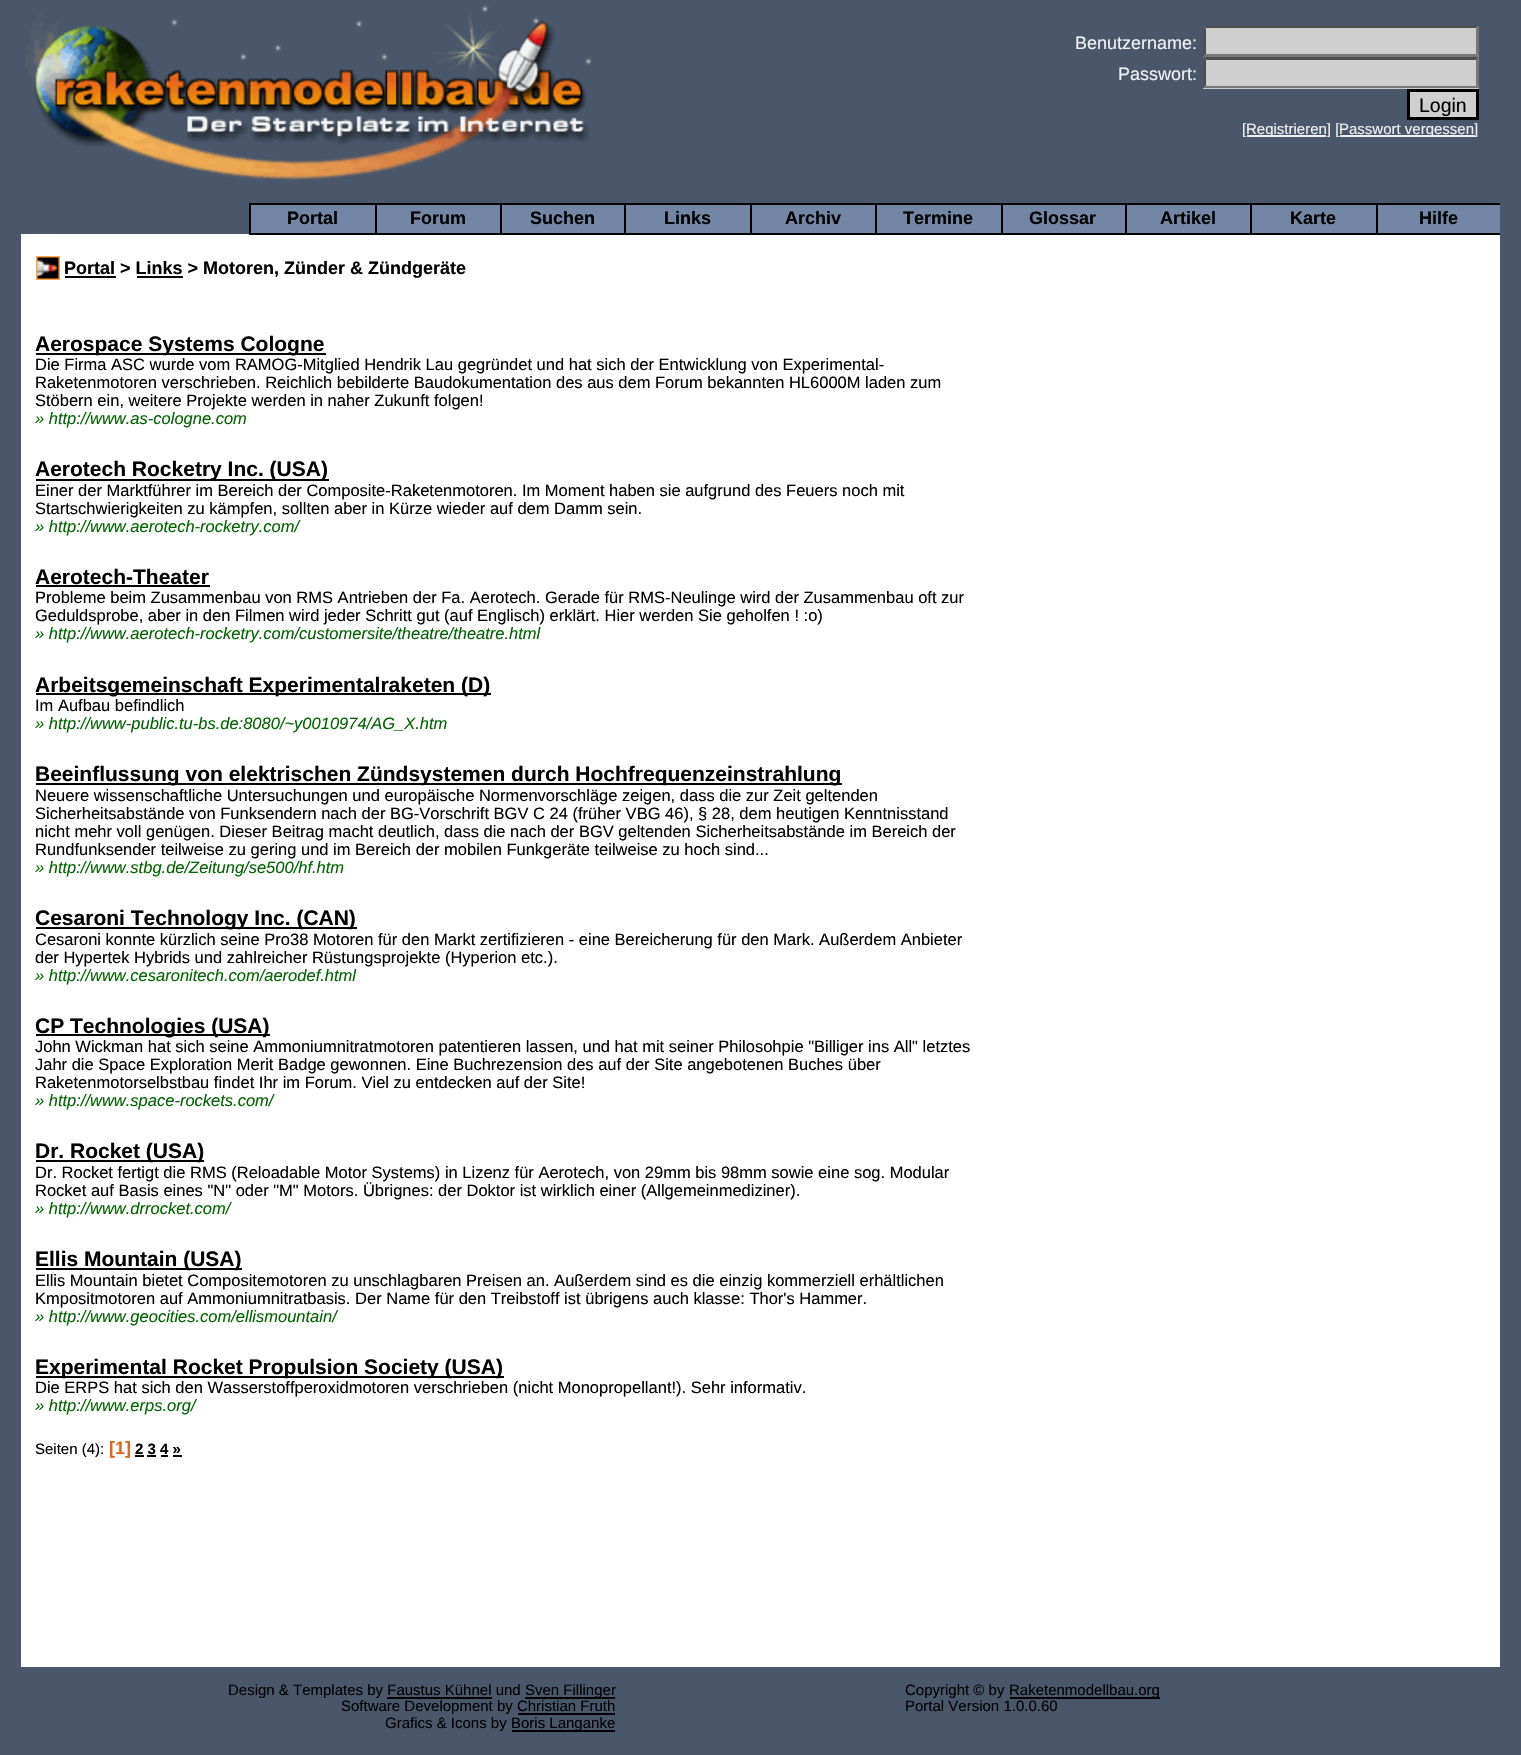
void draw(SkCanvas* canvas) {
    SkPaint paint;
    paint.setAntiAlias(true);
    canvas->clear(0xFF4A576B);
    canvas->drawImageRect(SkImages::DeferredFromEncodedData(SkData::MakeFromFileName("img1.png")), SkRect::MakeXYWH(25, 5, 567, 175), SkSamplingOptions());
    SkFont font1(fontMgr->matchFamilyStyle("Liberation Sans", SkFontStyle::Normal()), 18);
    font1.setSubpixel(true);
    paint.setColor(0xFFF1F1F1);
    canvas->drawString("Benutzername:", 1075, 49, font1, paint);
    paint.setColor(0xFFCFCFCF);
    canvas->drawRect(SkRect::MakeXYWH(1203, 26, 276, 63), paint);
    paint.setColor(0xFF4F4F4F);
    canvas->drawPath(SkPathBuilder().moveTo(1203, 26).lineTo(1479, 26).lineTo(1476, 28).lineTo(1206, 28).close().detach(), paint);
    paint.setColor(0xFF767676);
    canvas->drawPath(SkPathBuilder().moveTo(1479, 25.5f).lineTo(1479, 57).lineTo(1476, 54).lineTo(1476, 28.5f).close().detach(), paint);
    canvas->drawPath(SkPathBuilder().moveTo(1479, 57).lineTo(1203, 57).lineTo(1206, 54).lineTo(1476, 54).close().detach(), paint);
    paint.setColor(0xFF4F4F4F);
    canvas->drawPath(SkPathBuilder().moveTo(1203, 57).lineTo(1203, 25.5f).lineTo(1206, 28.5f).lineTo(1206, 54).close().detach(), paint);
    paint.setColor(0xFFF1F1F1);
    canvas->drawString("Passwort:", 1118, 80, font1, paint);
    paint.setColor(0xFF4F4F4F);
    canvas->drawPath(SkPathBuilder().moveTo(1203, 57).lineTo(1479, 57).lineTo(1476, 60).lineTo(1206, 60).close().detach(), paint);
    paint.setColor(0xFF767676);
    canvas->drawPath(SkPathBuilder().moveTo(1479, 57).lineTo(1479, 88.5f).lineTo(1476, 85.5f).lineTo(1476, 60).close().detach(), paint);
    canvas->drawPath(SkPathBuilder().moveTo(1479, 88).lineTo(1203, 88).lineTo(1206, 86).lineTo(1476, 86).close().detach(), paint);
    paint.setColor(0xFF4F4F4F);
    canvas->drawPath(SkPathBuilder().moveTo(1203, 88.5f).lineTo(1203, 57).lineTo(1206, 60).lineTo(1206, 85.5f).close().detach(), paint);
    paint.setColor(0xFFCFCFCF);
    canvas->drawRect(SkRect::MakeXYWH(1408.5f, 90.5f, 69, 28), paint);
    paint.setStyle(SkPaint::kStroke_Style);
    paint.setStrokeWidth(3);
    paint.setColor(0xFF000000);
    canvas->drawRect(SkRect::MakeXYWH(1408.5f, 90.5f, 69, 28), paint);
    SkFont font2(fontMgr->matchFamilyStyle("Liberation Sans", SkFontStyle::Normal()), 19.5f);
    font2.setSubpixel(true);
    paint.setStyle(SkPaint::kFill_Style);
    canvas->drawString("Login", 1419, 112, font2, paint);
    SkFont font3(fontMgr->matchFamilyStyle("Liberation Sans", SkFontStyle::Normal()), 15);
    font3.setSubpixel(true);
    paint.setColor(0xFFF1F1F1);
    canvas->drawString("[", 1242, 134, font3, paint);
    canvas->drawRect(SkRect::MakeXYWH(1247, 135, 79, 2), paint);
    canvas->drawString("Registrieren] [", 1246, 134, font3, paint);
    canvas->drawRect(SkRect::MakeXYWH(1340, 135, 135, 2), paint);
    canvas->drawString("Passwort vergessen]", 1339, 134, font3, paint);
    paint.setColor(0xFF7386A5);
    canvas->drawRect(SkRect::MakeXYWH(251, 205, 124, 28), paint);
    paint.setColor(0xFF000000);
    canvas->drawRect(SkRect::MakeXYWH(249, 203, 1251, 2), paint);
    paint.setColor(0xFFFFFFFF);
    canvas->drawRect(SkRect::MakeXYWH(21, 234, 1479, 1433), paint);
    paint.setColor(0xFF000000);
    canvas->drawRect(SkRect::MakeXYWH(249, 233, 1251, 2), paint);
    canvas->drawRect(SkRect::MakeXYWH(249, 203, 2, 31), paint);
    SkFont font4(fontMgr->matchFamilyStyle("Liberation Sans", SkFontStyle::Bold()), 18);
    font4.setSubpixel(true);
    canvas->drawString("Portal", 287, 224, font4, paint);
    paint.setColor(0xFF7386A5);
    canvas->drawRect(SkRect::MakeXYWH(377, 205, 123, 28), paint);
    paint.setColor(0xFF000000);
    canvas->drawRect(SkRect::MakeXYWH(375, 203, 2, 31), paint);
    canvas->drawString("Forum", 410, 224, font4, paint);
    paint.setColor(0xFF7386A5);
    canvas->drawRect(SkRect::MakeXYWH(502, 205, 122, 28), paint);
    paint.setColor(0xFF000000);
    canvas->drawRect(SkRect::MakeXYWH(500, 203, 2, 31), paint);
    canvas->drawString("Suchen", 530, 224, font4, paint);
    paint.setColor(0xFF7386A5);
    canvas->drawRect(SkRect::MakeXYWH(626, 205, 124, 28), paint);
    paint.setColor(0xFF000000);
    canvas->drawRect(SkRect::MakeXYWH(624, 203, 2, 31), paint);
    canvas->drawString("Links", 664, 224, font4, paint);
    paint.setColor(0xFF7386A5);
    canvas->drawRect(SkRect::MakeXYWH(752, 205, 123, 28), paint);
    paint.setColor(0xFF000000);
    canvas->drawRect(SkRect::MakeXYWH(750, 203, 2, 31), paint);
    canvas->drawString("Archiv", 785, 224, font4, paint);
    paint.setColor(0xFF7386A5);
    canvas->drawRect(SkRect::MakeXYWH(877, 205, 124, 28), paint);
    paint.setColor(0xFF000000);
    canvas->drawRect(SkRect::MakeXYWH(875, 203, 2, 31), paint);
    canvas->drawString("Termine", 903, 224, font4, paint);
    paint.setColor(0xFF7386A5);
    canvas->drawRect(SkRect::MakeXYWH(1003, 205, 122, 28), paint);
    paint.setColor(0xFF000000);
    canvas->drawRect(SkRect::MakeXYWH(1001, 203, 2, 31), paint);
    canvas->drawString("Glossar", 1029, 224, font4, paint);
    paint.setColor(0xFF7386A5);
    canvas->drawRect(SkRect::MakeXYWH(1127, 205, 123, 28), paint);
    paint.setColor(0xFF000000);
    canvas->drawRect(SkRect::MakeXYWH(1125, 203, 2, 31), paint);
    canvas->drawString("Artikel", 1160, 224, font4, paint);
    paint.setColor(0xFF7386A5);
    canvas->drawRect(SkRect::MakeXYWH(1252, 205, 124, 28), paint);
    paint.setColor(0xFF000000);
    canvas->drawRect(SkRect::MakeXYWH(1250, 203, 2, 31), paint);
    canvas->drawString("Karte", 1290, 224, font4, paint);
    paint.setColor(0xFF7386A5);
    canvas->drawRect(SkRect::MakeXYWH(1378, 205, 122, 28), paint);
    paint.setColor(0xFF000000);
    canvas->drawRect(SkRect::MakeXYWH(1376, 203, 2, 31), paint);
    canvas->drawString("Hilfe", 1419, 224, font4, paint);
    canvas->drawImageRect(SkImages::DeferredFromEncodedData(SkData::MakeFromFileName("img2.png")), SkRect::MakeXYWH(36, 256, 24, 24), SkSamplingOptions());
    canvas->drawRect(SkRect::MakeXYWH(65, 276, 51, 2), paint);
    canvas->drawString("Portal > Links > Motoren, Zünder & Zündgeräte", 64, 274, font4, paint);
    canvas->drawRect(SkRect::MakeXYWH(137, 276, 46, 2), paint);
    canvas->drawRect(SkRect::MakeXYWH(36, 353, 290, 2), paint);
    SkFont font5(fontMgr->matchFamilyStyle("Liberation Sans", SkFontStyle::Bold()), 21);
    font5.setSubpixel(true);
    canvas->drawString("Aerospace Systems Cologne", 35, 351, font5, paint);
    SkFont font6(fontMgr->matchFamilyStyle("Liberation Sans", SkFontStyle::Normal()), 16.5f);
    font6.setSubpixel(true);
    canvas->drawString("Die Firma ASC wurde vom RAMOG-Mitglied Hendrik Lau gegründet und hat sich der Entwicklung von Experimental-", 35, 370, font6, paint);
    canvas->drawString("Raketenmotoren verschrieben. Reichlich bebilderte Baudokumentation des aus dem Forum bekannten HL6000M laden zum", 35, 388, font6, paint);
    canvas->drawString("Stöbern ein, weitere Projekte werden in naher Zukunft folgen!", 35, 406, font6, paint);
    SkFont font7(fontMgr->matchFamilyStyle("Liberation Sans", SkFontStyle::Italic()), 16.5f);
    font7.setSubpixel(true);
    paint.setColor(0xFF006400);
    canvas->drawString("» http://www.as-cologne.com", 35, 424, font7, paint);
    paint.setColor(0xFF000000);
    canvas->drawRect(SkRect::MakeXYWH(36, 479, 293, 2), paint);
    canvas->drawString("Aerotech Rocketry Inc. (USA)", 35, 476, font5, paint);
    canvas->drawString("Einer der Marktführer im Bereich der Composite-Raketenmotoren. Im Moment haben sie aufgrund des Feuers noch mit", 35, 496, font6, paint);
    canvas->drawString("Startschwierigkeiten zu kämpfen, sollten aber in Kürze wieder auf dem Damm sein.", 35, 514, font6, paint);
    paint.setColor(0xFF006400);
    canvas->drawString("» http://www.aerotech-rocketry.com/", 35, 532, font7, paint);
    paint.setColor(0xFF000000);
    canvas->drawString("Aerotech-Theater", 35, 584, font5, paint);
    canvas->drawRect(SkRect::MakeXYWH(36, 585, 174, 2), paint);
    canvas->drawString("Probleme beim Zusammenbau von RMS Antrieben der Fa. Aerotech. Gerade für RMS-Neulinge wird der Zusammenbau oft zur", 35, 603, font6, paint);
    canvas->drawString("Geduldsprobe, aber in den Filmen wird jeder Schritt gut (auf Englisch) erklärt. Hier werden Sie geholfen ! :o)", 35, 621, font6, paint);
    paint.setColor(0xFF006400);
    canvas->drawString("» http://www.aerotech-rocketry.com/customersite/theatre/theatre.html", 35, 639, font7, paint);
    paint.setColor(0xFF000000);
    canvas->drawRect(SkRect::MakeXYWH(36, 693, 455, 2), paint);
    canvas->drawString("Arbeitsgemeinschaft Experimentalraketen (D)", 35, 692, font5, paint);
    canvas->drawString("Im Aufbau befindlich", 35, 711, font6, paint);
    paint.setColor(0xFF006400);
    canvas->drawString("» http://www-public.tu-bs.de:8080/~y0010974/AG_X.htm", 35, 729, font7, paint);
    paint.setColor(0xFF000000);
    canvas->drawRect(SkRect::MakeXYWH(36, 783, 806, 2), paint);
    canvas->drawString("Beeinflussung von elektrischen Zündsystemen durch Hochfrequenzeinstrahlung", 35, 781, font5, paint);
    canvas->drawString("Neuere wissenschaftliche Untersuchungen und europäische Normenvorschläge zeigen, dass die zur Zeit geltenden", 35, 801, font6, paint);
    canvas->drawString("Sicherheitsabstände von Funksendern nach der BG-Vorschrift BGV C 24 (früher VBG 46), § 28, dem heutigen Kenntnisstand", 35, 819, font6, paint);
    canvas->drawString("nicht mehr voll genügen. Dieser Beitrag macht deutlich, dass die nach der BGV geltenden Sicherheitsabstände im Bereich der", 35, 837, font6, paint);
    canvas->drawString("Rundfunksender teilweise zu gering und im Bereich der mobilen Funkgeräte teilweise zu hoch sind...", 35, 855, font6, paint);
    paint.setColor(0xFF006400);
    canvas->drawString("» http://www.stbg.de/Zeitung/se500/hf.htm", 35, 873, font7, paint);
    paint.setColor(0xFF000000);
    canvas->drawRect(SkRect::MakeXYWH(36, 927, 321, 2), paint);
    canvas->drawString("Cesaroni Technology Inc. (CAN)", 35, 925, font5, paint);
    canvas->drawString("Cesaroni konnte kürzlich seine Pro38 Motoren für den Markt zertifizieren - eine Bereicherung für den Mark. Außerdem Anbieter", 35, 945, font6, paint);
    canvas->drawString("der Hypertek Hybrids und zahlreicher Rüstungsprojekte (Hyperion etc.).", 35, 963, font6, paint);
    paint.setColor(0xFF006400);
    canvas->drawString("» http://www.cesaronitech.com/aerodef.html", 35, 981, font7, paint);
    paint.setColor(0xFF000000);
    canvas->drawRect(SkRect::MakeXYWH(36, 1034, 234, 2), paint);
    canvas->drawString("CP Technologies (USA)", 35, 1033, font5, paint);
    canvas->drawString("John Wickman hat sich seine Ammoniumnitratmotoren patentieren lassen, und hat mit seiner Philosohpie \"Billiger ins All\" letztes", 35, 1052, font6, paint);
    canvas->drawString("Jahr die Space Exploration Merit Badge gewonnen. Eine Buchrezension des auf der Site angebotenen Buches über", 35, 1070, font6, paint);
    canvas->drawString("Raketenmotorselbstbau findet Ihr im Forum. Viel zu entdecken auf der Site!", 35, 1088, font6, paint);
    paint.setColor(0xFF006400);
    canvas->drawString("» http://www.space-rockets.com/", 35, 1106, font7, paint);
    paint.setColor(0xFF000000);
    canvas->drawRect(SkRect::MakeXYWH(36, 1160, 168, 2), paint);
    canvas->drawString("Dr. Rocket (USA)", 35, 1158, font5, paint);
    canvas->drawString("Dr. Rocket fertigt die RMS (Reloadable Motor Systems) in Lizenz für Aerotech, von 29mm bis 98mm sowie eine sog. Modular", 35, 1178, font6, paint);
    canvas->drawString("Rocket auf Basis eines \"N\" oder \"M\" Motors. Übrignes: der Doktor ist wirklich einer (Allgemeinmediziner).", 35, 1196, font6, paint);
    paint.setColor(0xFF006400);
    canvas->drawString("» http://www.drrocket.com/", 35, 1214, font7, paint);
    paint.setColor(0xFF000000);
    canvas->drawRect(SkRect::MakeXYWH(36, 1268, 206, 2), paint);
    canvas->drawString("Ellis Mountain (USA)", 35, 1266, font5, paint);
    canvas->drawString("Ellis Mountain bietet Compositemotoren zu unschlagbaren Preisen an. Außerdem sind es die einzig kommerziell erhältlichen", 35, 1286, font6, paint);
    canvas->drawString("Kmpositmotoren auf Ammoniumnitratbasis. Der Name für den Treibstoff ist übrigens auch klasse: Thor's Hammer.", 35, 1304, font6, paint);
    paint.setColor(0xFF006400);
    canvas->drawString("» http://www.geocities.com/ellismountain/", 35, 1322, font7, paint);
    paint.setColor(0xFF000000);
    canvas->drawRect(SkRect::MakeXYWH(36, 1376, 468, 2), paint);
    canvas->drawString("Experimental Rocket Propulsion Society (USA)", 35, 1374, font5, paint);
    canvas->drawString("Die ERPS hat sich den Wasserstoffperoxidmotoren verschrieben (nicht Monopropellant!). Sehr informativ.", 35, 1393, font6, paint);
    paint.setColor(0xFF006400);
    canvas->drawString("» http://www.erps.org/", 35, 1411, font7, paint);
    paint.setColor(0xFF000000);
    canvas->drawString("Seiten (4):", 35, 1454, font3, paint);
    paint.setColor(0xFFE3641C);
    canvas->drawString("[1]", 109, 1454, font4, paint);
    SkFont font8(fontMgr->matchFamilyStyle("Liberation Sans", SkFontStyle::Bold()), 15);
    font8.setSubpixel(true);
    paint.setColor(0xFF000000);
    canvas->drawString("2 3 4 »", 135, 1454, font8, paint);
    canvas->drawRect(SkRect::MakeXYWH(135, 1455, 9, 2), paint);
    canvas->drawRect(SkRect::MakeXYWH(147, 1455, 9, 2), paint);
    canvas->drawRect(SkRect::MakeXYWH(161, 1455, 7, 2), paint);
    canvas->drawRect(SkRect::MakeXYWH(173, 1455, 9, 2), paint);
    canvas->drawString("Design & Templates by Faustus Kühnel und", 228, 1695, font3, paint);
    canvas->drawRect(SkRect::MakeXYWH(525, 1697, 90, 2), paint);
    canvas->drawString("Sven Fillinger", 525, 1695, font3, paint);
    canvas->drawRect(SkRect::MakeXYWH(387, 1697, 105, 2), paint);
    canvas->drawString("Software Development by Christian Fruth", 341, 1711, font3, paint);
    canvas->drawRect(SkRect::MakeXYWH(518, 1713, 97, 2), paint);
    canvas->drawString("Grafics & Icons by", 385, 1728, font3, paint);
    canvas->drawRect(SkRect::MakeXYWH(512, 1730, 103, 2), paint);
    canvas->drawString("Boris Langanke", 511, 1728, font3, paint);
    canvas->drawString("Copyright © by", 905, 1695, font3, paint);
    canvas->drawRect(SkRect::MakeXYWH(1010, 1697, 150, 2), paint);
    canvas->drawString("Raketenmodellbau.org", 1009, 1695, font3, paint);
    canvas->drawString("Portal Version 1.0.0.60", 905, 1711, font3, paint);
}
